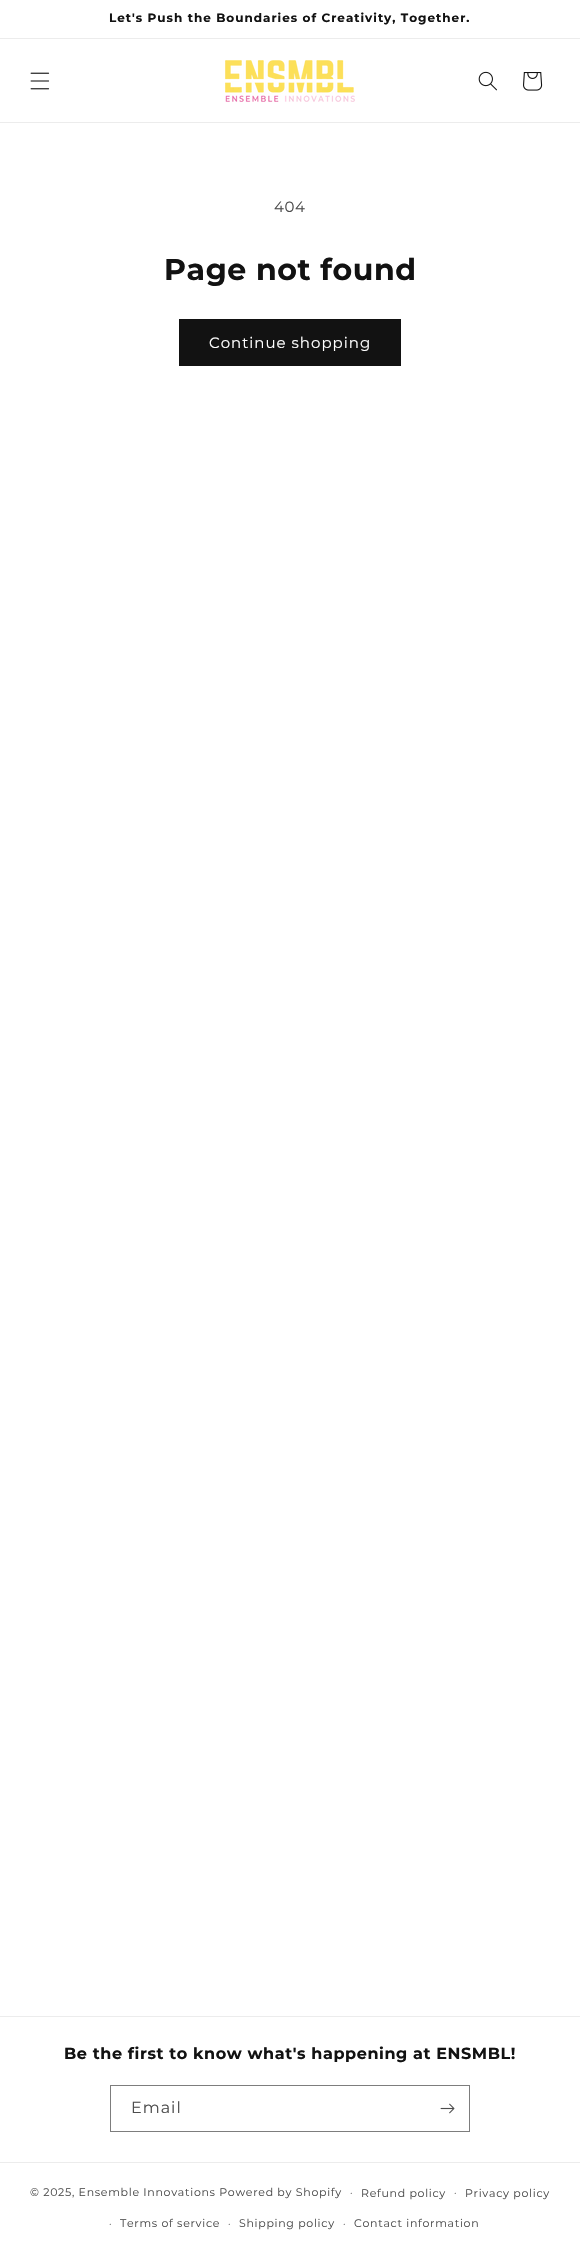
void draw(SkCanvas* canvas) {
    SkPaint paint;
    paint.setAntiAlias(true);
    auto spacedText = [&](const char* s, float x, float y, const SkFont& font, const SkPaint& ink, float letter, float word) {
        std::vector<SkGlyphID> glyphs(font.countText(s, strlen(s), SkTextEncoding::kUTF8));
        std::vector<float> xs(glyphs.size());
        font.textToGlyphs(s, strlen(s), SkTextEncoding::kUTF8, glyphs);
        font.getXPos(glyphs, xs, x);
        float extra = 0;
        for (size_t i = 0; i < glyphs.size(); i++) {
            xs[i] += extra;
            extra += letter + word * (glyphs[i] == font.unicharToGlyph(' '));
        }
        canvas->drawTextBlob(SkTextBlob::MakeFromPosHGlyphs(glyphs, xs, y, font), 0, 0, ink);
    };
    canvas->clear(0xFFFFFFFF);
    paint.setColor(0xFFECECEC);
    canvas->drawRect(SkRect::MakeXYWH(0, 38, 580, 1), paint);
    SkFont font1(fontMgr->matchFamilyStyle("Montserrat", SkFontStyle::Bold()), 12);
    font1.setSubpixel(true);
    paint.setColor(0xFF121212);
    spacedText("Let's Push the Boundaries of Creativity, Together.", 109, 22, font1, paint, 1, 0);
    paint.setColor(0xFFECECEC);
    canvas->drawRect(SkRect::MakeXYWH(0, 122, 580, 1), paint);
    canvas->drawImageRect(SkImages::DeferredFromEncodedData(SkData::MakeFromFileName("img1.png")), SkRect::MakeXYWH(30, 72, 20, 18), SkSamplingOptions());
    canvas->drawImageRect(SkImages::DeferredFromEncodedData(SkData::MakeFromFileName("img2.png")), SkRect::MakeXYWH(225, 60, 130, 42), SkSamplingOptions());
    canvas->drawImageRect(SkImages::DeferredFromEncodedData(SkData::MakeFromFileName("img3.png")), SkRect::MakeXYWH(478, 71, 19, 20), SkSamplingOptions());
    canvas->drawImageRect(SkImages::DeferredFromEncodedData(SkData::MakeFromFileName("img4.png")), SkRect::MakeXYWH(523, 72, 20, 19), SkSamplingOptions());
    SkFont font2(fontMgr->matchFamilyStyle("Montserrat", SkFontStyle::Normal()), 15);
    font2.setSubpixel(true);
    paint.setColor(0xFF4D4D4D);
    spacedText("404", 274, 212, font2, paint, 0.6f, 0);
    SkFont font3(fontMgr->matchFamilyStyle("Montserrat", SkFontStyle::Bold()), 30);
    font3.setSubpixel(true);
    paint.setColor(0xFF121212);
    spacedText("Page not found", 164, 280, font3, paint, 0.6f, 0);
    canvas->drawRect(SkRect::MakeXYWH(179, 319, 222, 47), paint);
    paint.setColor(0xFFFFFFFF);
    spacedText("Continue shopping", 209, 348, font2, paint, 1, 0);
    paint.setColor(0xFFECECEC);
    canvas->drawRect(SkRect::MakeXYWH(0, 2016, 580, 1), paint);
    SkFont font4(fontMgr->matchFamilyStyle("Montserrat", SkFontStyle::Bold()), 16);
    font4.setSubpixel(true);
    paint.setColor(0xFF121212);
    spacedText("Be the first to know what's happening at ENSMBL!", 64, 2059, font4, paint, 0.6f, 0);
    paint.setStyle(SkPaint::kStroke_Style);
    paint.setStrokeWidth(1);
    paint.setColor(0xFF7D7D7D);
    canvas->drawRect(SkRect::MakeXYWH(110.5f, 2085.5f, 359, 46), paint);
    SkFont font5(fontMgr->matchFamilyStyle("Montserrat", SkFontStyle::Normal()), 16);
    font5.setSubpixel(true);
    paint.setStyle(SkPaint::kFill_Style);
    paint.setColor(0xFF4D4D4D);
    spacedText("Email", 131, 2113, font5, paint, 1, 0);
    canvas->drawImageRect(SkImages::DeferredFromEncodedData(SkData::MakeFromFileName("img5.png")), SkRect::MakeXYWH(440, 2103, 15, 11), SkSamplingOptions());
    paint.setColor(0xFFECECEC);
    canvas->drawRect(SkRect::MakeXYWH(0, 2162, 580, 1), paint);
    SkFont font6(fontMgr->matchFamilyStyle("Montserrat", SkFontStyle::Normal()), 11);
    font6.setSubpixel(true);
    paint.setColor(0xFF4D4D4D);
    spacedText("© 2025, Ensemble Innovations Powered by Shopify", 30, 2196, font6, paint, 0.7f, 0);
    SkFont font7(fontMgr->matchFamilyStyle("Montserrat", SkFontStyle::Normal()), 10);
    font7.setSubpixel(true);
    spacedText("·", 350, 2196, font7, paint, 0.7f, 0);
    spacedText("Refund policy", 361, 2197, font6, paint, 0.7f, 0);
    spacedText("·", 454, 2196, font7, paint, 0.7f, 0);
    spacedText("Privacy policy", 465, 2197, font6, paint, 0.7f, 0);
    spacedText("·", 109, 2227, font7, paint, 0.7f, 0);
    spacedText("Terms of service", 120, 2227, font6, paint, 0.7f, 0);
    spacedText("·", 228, 2227, font7, paint, 0.7f, 0);
    spacedText("Shipping policy", 239, 2227, font6, paint, 0.7f, 0);
    spacedText("·", 343, 2227, font7, paint, 0.7f, 0);
    spacedText("Contact information", 354, 2227, font6, paint, 0.7f, 0);
}
